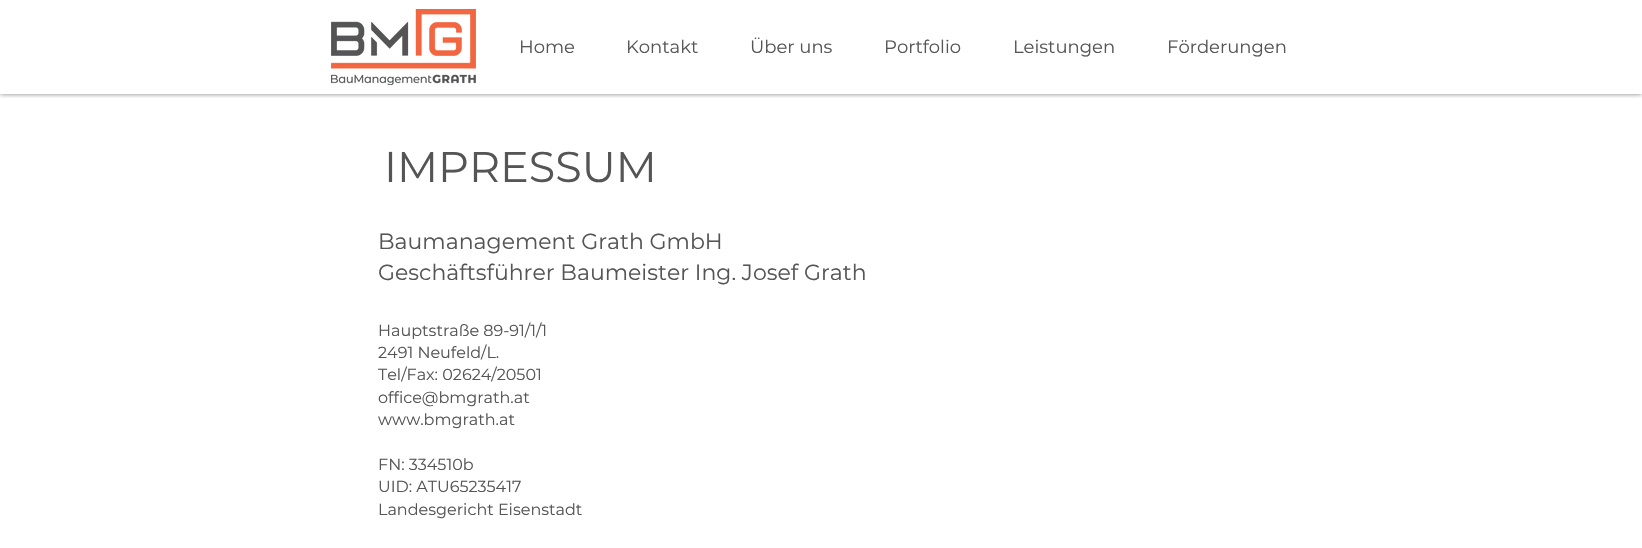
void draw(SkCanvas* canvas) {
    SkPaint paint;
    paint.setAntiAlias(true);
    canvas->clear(0xFFFFFFFF);
    canvas->save();
    canvas->clipRect(SkRect::MakeXYWH(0, 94, 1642, 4));
    paint.setColor(0x80000000);
    paint.setMaskFilter(SkMaskFilter::MakeBlur(kNormal_SkBlurStyle, 2.5f));
    canvas->drawRect(SkRect::MakeXYWH(0, 0, 1642, 94), paint);
    paint.setMaskFilter(nullptr);
    canvas->restore();
    canvas->drawImageRect(SkImages::DeferredFromEncodedData(SkData::MakeFromFileName("img1.png")), SkRect::MakeXYWH(331, 9, 145, 76), SkSamplingOptions());
    SkFont font1(fontMgr->matchFamilyStyle("Montserrat", SkFontStyle::Normal()), 18);
    font1.setSubpixel(true);
    paint.setColor(0xFF555555);
    canvas->drawString("Home", 519, 53, font1, paint);
    canvas->drawString("Kontakt", 626, 53, font1, paint);
    canvas->drawString("Über uns", 750, 53, font1, paint);
    canvas->drawString("Portfolio", 884, 53, font1, paint);
    canvas->drawString("Leistungen", 1013, 53, font1, paint);
    canvas->drawString("Förderungen", 1167, 53, font1, paint);
    SkFont font2(fontMgr->matchFamilyStyle("Montserrat", SkFontStyle::Normal()), 43);
    font2.setSubpixel(true);
    canvas->drawString("IMPRESSUM", 384, 182, font2, paint);
    SkFont font3(fontMgr->matchFamilyStyle("Montserrat", SkFontStyle::Normal()), 22);
    font3.setSubpixel(true);
    canvas->drawString("Baumanagement Grath GmbH", 378, 249, font3, paint);
    canvas->drawString("Geschäftsführer Baumeister Ing. Josef Grath", 378, 280, font3, paint);
    SkFont font4(fontMgr->matchFamilyStyle("Montserrat", SkFontStyle::Normal()), 16);
    font4.setSubpixel(true);
    canvas->drawString("Hauptstraße 89-91/1/1", 378, 336, font4, paint);
    canvas->drawString("2491 Neufeld/L.", 378, 358, font4, paint);
    canvas->drawString("Tel/Fax: 02624/20501", 378, 380, font4, paint);
    canvas->drawString("office@bmgrath.at", 378, 403, font4, paint);
    canvas->drawString("www.bmgrath.at", 378, 425, font4, paint);
    canvas->drawString("FN: 334510b", 378, 470, font4, paint);
    canvas->drawString("UID: ATU65235417", 378, 492, font4, paint);
    canvas->drawString("Landesgericht Eisenstadt", 378, 515, font4, paint);
}
